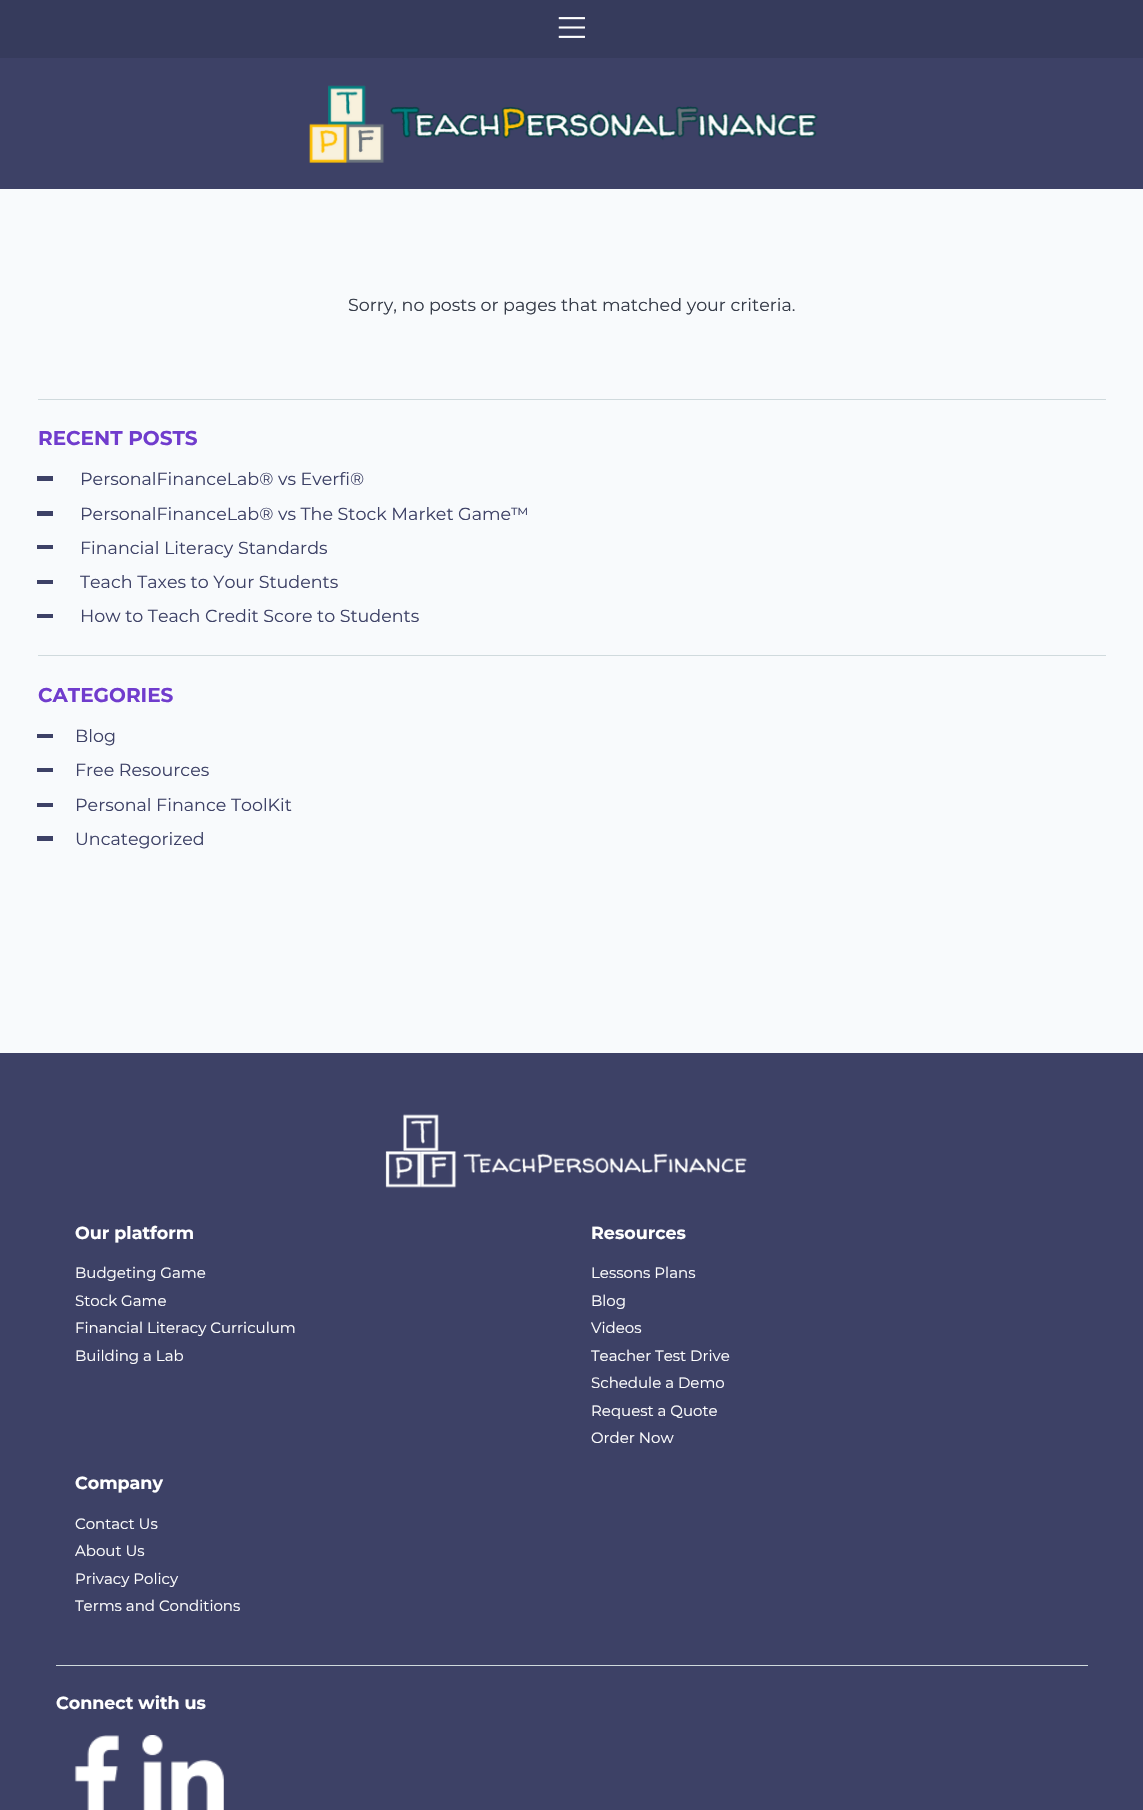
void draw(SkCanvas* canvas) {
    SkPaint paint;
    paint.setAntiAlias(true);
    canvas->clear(0xFFF8FAFC);
    paint.setColor(0xFF363B5C);
    canvas->drawRect(SkRect::MakeXYWH(0, 0, 1143, 58), paint);
    canvas->drawImageRect(SkImages::DeferredFromEncodedData(SkData::MakeFromFileName("img1.png")), SkRect::MakeXYWH(558, 17, 27, 21), SkSamplingOptions());
    paint.setColor(0xFF3D4166);
    canvas->drawRect(SkRect::MakeXYWH(0, 58, 1143, 131), paint);
    canvas->drawImageRect(SkImages::DeferredFromEncodedData(SkData::MakeFromFileName("img2.png")), SkRect::MakeXYWH(309, 85, 509, 78), SkSamplingOptions());
    SkFont font1(fontMgr->matchFamilyStyle("Montserrat", SkFontStyle::Normal()), 17.5f);
    font1.setSubpixel(true);
    paint.setColor(0xFF353B48);
    canvas->drawString("Sorry, no posts or pages that matched your criteria.", 348, 311, font1, paint);
    paint.setColor(0xFFD0DADD);
    canvas->drawRect(SkRect::MakeXYWH(38, 399, 1068, 1), paint);
    canvas->drawRect(SkRect::MakeXYWH(38, 655, 1068, 1), paint);
    SkFont font2(fontMgr->matchFamilyStyle("Montserrat", SkFontStyle::Bold()), 20);
    font2.setSubpixel(true);
    paint.setColor(0xFF703CCD);
    canvas->drawString("RECENT POSTS", 38, 445, font2, paint);
    paint.setColor(0xFF3D4166);
    canvas->drawRect(SkRect::MakeXYWH(37, 476, 16, 5), paint);
    canvas->drawString("PersonalFinanceLab® vs Everfi®", 80, 485, font1, paint);
    canvas->drawRect(SkRect::MakeXYWH(37, 511, 16, 5), paint);
    canvas->drawString("PersonalFinanceLab® vs The Stock Market Game™", 80, 520, font1, paint);
    canvas->drawRect(SkRect::MakeXYWH(37, 545, 16, 4), paint);
    canvas->drawString("Financial Literacy Standards", 80, 554, font1, paint);
    canvas->drawRect(SkRect::MakeXYWH(37, 580, 16, 4), paint);
    canvas->drawString("Teach Taxes to Your Students", 80, 588, font1, paint);
    canvas->drawRect(SkRect::MakeXYWH(37, 614, 16, 4), paint);
    canvas->drawString("How to Teach Credit Score to Students", 80, 622, font1, paint);
    paint.setColor(0xFF703CCD);
    canvas->drawString("CATEGORIES", 38, 702, font2, paint);
    paint.setColor(0xFF3D4166);
    canvas->drawRect(SkRect::MakeXYWH(37, 734, 16, 4), paint);
    canvas->drawString("Blog", 75, 742, font1, paint);
    canvas->drawRect(SkRect::MakeXYWH(37, 768, 16, 4), paint);
    canvas->drawString("Free Resources", 75, 776, font1, paint);
    canvas->drawRect(SkRect::MakeXYWH(37, 803, 16, 4), paint);
    canvas->drawString("Personal Finance ToolKit", 75, 811, font1, paint);
    canvas->drawRect(SkRect::MakeXYWH(37, 836, 16, 5), paint);
    canvas->drawString("Uncategorized", 75, 845, font1, paint);
    canvas->drawRect(SkRect::MakeXYWH(0, 1053, 1143, 757), paint);
    canvas->drawImageRect(SkImages::DeferredFromEncodedData(SkData::MakeFromFileName("img3.png")), SkRect::MakeXYWH(385, 1114, 362, 74), SkSamplingOptions());
    SkFont font3(fontMgr->matchFamilyStyle("Montserrat", SkFontStyle::Bold()), 17.5f);
    font3.setSubpixel(true);
    paint.setColor(0xFFFFFFFF);
    canvas->drawString("Our platform", 75, 1239, font3, paint);
    SkFont font4(fontMgr->matchFamilyStyle("Montserrat", SkFontStyle::Normal()), 15);
    font4.setSubpixel(true);
    canvas->drawString("Budgeting Game", 75, 1278, font4, paint);
    canvas->drawString("Stock Game", 75, 1306, font4, paint);
    canvas->drawString("Financial Literacy Curriculum", 75, 1333, font4, paint);
    canvas->drawString("Building a Lab", 75, 1361, font4, paint);
    canvas->drawString("Resources", 591, 1239, font3, paint);
    canvas->drawString("Lessons Plans", 591, 1278, font4, paint);
    canvas->drawString("Blog", 591, 1306, font4, paint);
    canvas->drawString("Videos", 591, 1333, font4, paint);
    canvas->drawString("Teacher Test Drive", 591, 1361, font4, paint);
    canvas->drawString("Schedule a Demo", 591, 1388, font4, paint);
    canvas->drawString("Request a Quote", 591, 1416, font4, paint);
    canvas->drawString("Order Now", 591, 1443, font4, paint);
    canvas->drawString("Company", 75, 1489, font3, paint);
    canvas->drawString("Contact Us", 75, 1529, font4, paint);
    canvas->drawString("About Us", 75, 1556, font4, paint);
    canvas->drawString("Privacy Policy", 75, 1584, font4, paint);
    canvas->drawString("Terms and Conditions", 75, 1611, font4, paint);
    paint.setColor(0xFFD0DADD);
    canvas->drawRect(SkRect::MakeXYWH(56, 1665, 1032, 1), paint);
    paint.setColor(0xFFFFFFFF);
    canvas->drawString("Connect with us", 56, 1709, font3, paint);
    canvas->drawImageRect(SkImages::DeferredFromEncodedData(SkData::MakeFromFileName("img4.png")), SkRect::MakeXYWH(74, 1735, 45, 75), SkSamplingOptions());
    canvas->drawImageRect(SkImages::DeferredFromEncodedData(SkData::MakeFromFileName("img5.png")), SkRect::MakeXYWH(142, 1735, 82, 75), SkSamplingOptions());
}
